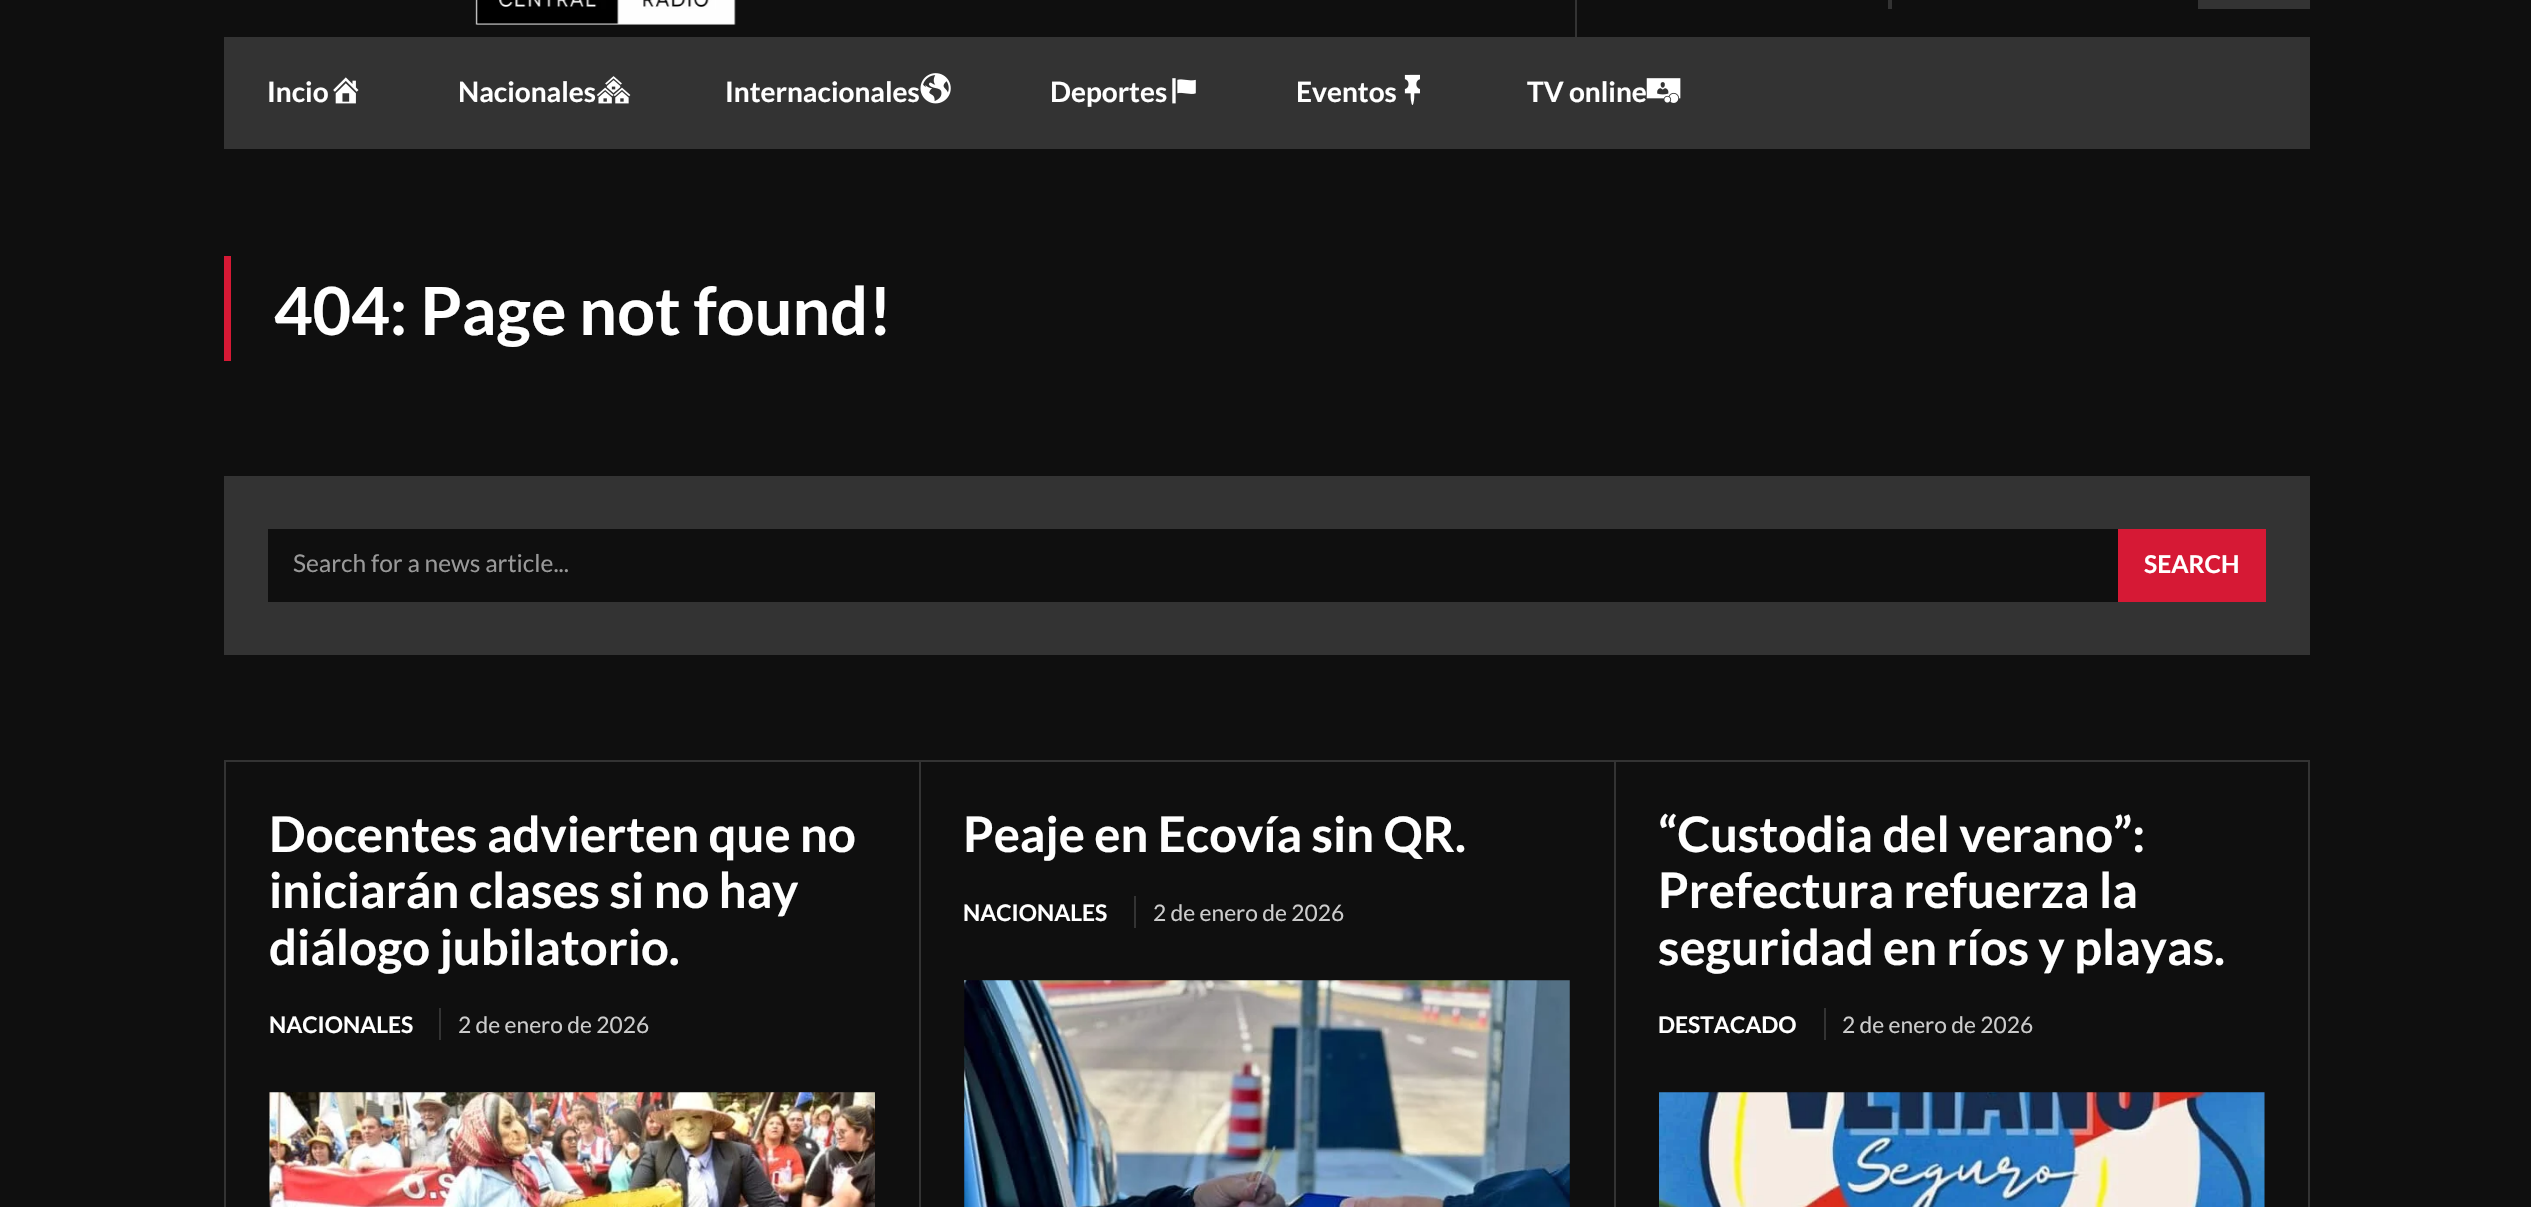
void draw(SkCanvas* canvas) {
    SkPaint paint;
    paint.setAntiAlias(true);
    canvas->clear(0xFF0F0F0F);
    canvas->drawImageRect(SkImages::DeferredFromEncodedData(SkData::MakeFromFileName("img1.png")), SkRect::MakeXYWH(475, 0, 261, 25), SkSamplingOptions());
    paint.setColor(0xFF333333);
    canvas->drawRect(SkRect::MakeXYWH(1575, 0, 2, 37), paint);
    canvas->drawRect(SkRect::MakeXYWH(1888, 0, 4, 9), paint);
    canvas->drawRect(SkRect::MakeXYWH(2198, 0, 112, 9), paint);
    canvas->drawRect(SkRect::MakeXYWH(224, 37, 2086, 112), paint);
    SkFont font1(fontMgr->matchFamilyStyle("Lato", SkFontStyle::Bold()), 28);
    font1.setSubpixel(true);
    paint.setColor(0xFFFFFFFF);
    canvas->drawString("Incio", 267, 102, font1, paint);
    canvas->drawImageRect(SkImages::DeferredFromEncodedData(SkData::MakeFromFileName("img2.png")), SkRect::MakeXYWH(333, 77, 26, 27), SkSamplingOptions());
    canvas->drawString("Nacionales", 458, 102, font1, paint);
    canvas->drawImageRect(SkImages::DeferredFromEncodedData(SkData::MakeFromFileName("img3.png")), SkRect::MakeXYWH(596, 76, 35, 28), SkSamplingOptions());
    canvas->drawString("Internacionales", 725, 102, font1, paint);
    canvas->drawImageRect(SkImages::DeferredFromEncodedData(SkData::MakeFromFileName("img4.png")), SkRect::MakeXYWH(920, 73, 31, 31), SkSamplingOptions());
    canvas->drawString("Deportes", 1050, 102, font1, paint);
    canvas->drawImageRect(SkImages::DeferredFromEncodedData(SkData::MakeFromFileName("img5.png")), SkRect::MakeXYWH(1172, 78, 24, 26), SkSamplingOptions());
    canvas->drawString("Eventos", 1296, 102, font1, paint);
    canvas->drawImageRect(SkImages::DeferredFromEncodedData(SkData::MakeFromFileName("img6.png")), SkRect::MakeXYWH(1404, 74, 16, 31), SkSamplingOptions());
    canvas->drawString("TV online", 1527, 102, font1, paint);
    canvas->drawImageRect(SkImages::DeferredFromEncodedData(SkData::MakeFromFileName("img7.png")), SkRect::MakeXYWH(1646, 78, 35, 25), SkSamplingOptions());
    paint.setColor(0xFFD61935);
    canvas->drawRect(SkRect::MakeXYWH(224, 256, 7, 105), paint);
    SkFont font2(fontMgr->matchFamilyStyle("Lato", SkFontStyle::Bold()), 66.5f);
    font2.setSubpixel(true);
    paint.setColor(0xFFFFFFFF);
    canvas->drawString("404: Page not found!", 274, 335, font2, paint);
    paint.setColor(0xFF333333);
    canvas->drawRect(SkRect::MakeXYWH(224, 476, 2086, 179), paint);
    paint.setColor(0xFF0F0F0F);
    canvas->drawRect(SkRect::MakeXYWH(268, 529, 1850, 73), paint);
    SkFont font3(fontMgr->matchFamilyStyle("Lato", SkFontStyle::Normal()), 24.5f);
    font3.setSubpixel(true);
    paint.setColor(0xFF999999);
    canvas->drawString("Search for a news article...", 293, 572, font3, paint);
    paint.setColor(0xFFD61935);
    canvas->drawRect(SkRect::MakeXYWH(2118, 529, 148, 73), paint);
    SkFont font4(fontMgr->matchFamilyStyle("Lato", SkFontStyle::Bold()), 24.5f);
    font4.setSubpixel(true);
    paint.setColor(0xFFFFFFFF);
    canvas->drawString("SEARCH", 2144, 573, font4, paint);
    paint.setColor(0xFF333333);
    canvas->drawRect(SkRect::MakeXYWH(224, 760, 2086, 2), paint);
    canvas->drawRect(SkRect::MakeXYWH(224, 760, 2, 447), paint);
    canvas->drawRect(SkRect::MakeXYWH(919, 761, 2, 446), paint);
    SkFont font5(fontMgr->matchFamilyStyle("Lato", SkFontStyle::Bold()), 49);
    font5.setSubpixel(true);
    paint.setColor(0xFFFFFFFF);
    canvas->drawString("Docentes advierten que no", 269, 852, font5, paint);
    canvas->drawString("iniciarán clases si no hay", 269, 908, font5, paint);
    canvas->drawString("diálogo jubilatorio.", 269, 965, font5, paint);
    paint.setColor(0xFF333333);
    canvas->drawRect(SkRect::MakeXYWH(439, 1008, 2, 32), paint);
    SkFont font6(fontMgr->matchFamilyStyle("Lato", SkFontStyle::Bold()), 22.75f);
    font6.setSubpixel(true);
    paint.setColor(0xFFFFFFFF);
    canvas->drawString("NACIONALES", 269, 1033, font6, paint);
    SkFont font7(fontMgr->matchFamilyStyle("Lato", SkFontStyle::Normal()), 22.75f);
    font7.setSubpixel(true);
    paint.setColor(0xFFCCCCCC);
    canvas->drawString("2 de enero de 2026", 458, 1033, font7, paint);
    canvas->drawImageRect(SkImages::DeferredFromEncodedData(SkData::MakeFromFileName("img8.png")), SkRect::MakeXYWH(269, 1092, 606, 115), SkSamplingOptions());
    paint.setColor(0xFF333333);
    canvas->drawRect(SkRect::MakeXYWH(1614, 761, 2, 446), paint);
    paint.setColor(0xFFFFFFFF);
    canvas->drawString("Peaje en Ecovía sin QR.", 963, 852, font5, paint);
    paint.setColor(0xFF333333);
    canvas->drawRect(SkRect::MakeXYWH(1134, 896, 2, 32), paint);
    paint.setColor(0xFFFFFFFF);
    canvas->drawString("NACIONALES", 963, 921, font6, paint);
    paint.setColor(0xFFCCCCCC);
    canvas->drawString("2 de enero de 2026", 1153, 921, font7, paint);
    canvas->drawImageRect(SkImages::DeferredFromEncodedData(SkData::MakeFromFileName("img9.png")), SkRect::MakeXYWH(964, 980, 606, 227), SkSamplingOptions());
    paint.setColor(0xFF333333);
    canvas->drawRect(SkRect::MakeXYWH(2308, 761, 2, 446), paint);
    paint.setColor(0xFFFFFFFF);
    canvas->drawString("“Custodia del verano”:", 1658, 852, font5, paint);
    canvas->drawString("Prefectura refuerza la", 1658, 908, font5, paint);
    canvas->drawString("seguridad en ríos y playas.", 1658, 965, font5, paint);
    paint.setColor(0xFF333333);
    canvas->drawRect(SkRect::MakeXYWH(1824, 1008, 2, 32), paint);
    paint.setColor(0xFFFFFFFF);
    canvas->drawString("DESTACADO", 1658, 1033, font6, paint);
    paint.setColor(0xFFCCCCCC);
    canvas->drawString("2 de enero de 2026", 1842, 1033, font7, paint);
    canvas->drawImageRect(SkImages::DeferredFromEncodedData(SkData::MakeFromFileName("img10.png")), SkRect::MakeXYWH(1659, 1092, 606, 115), SkSamplingOptions());
}
